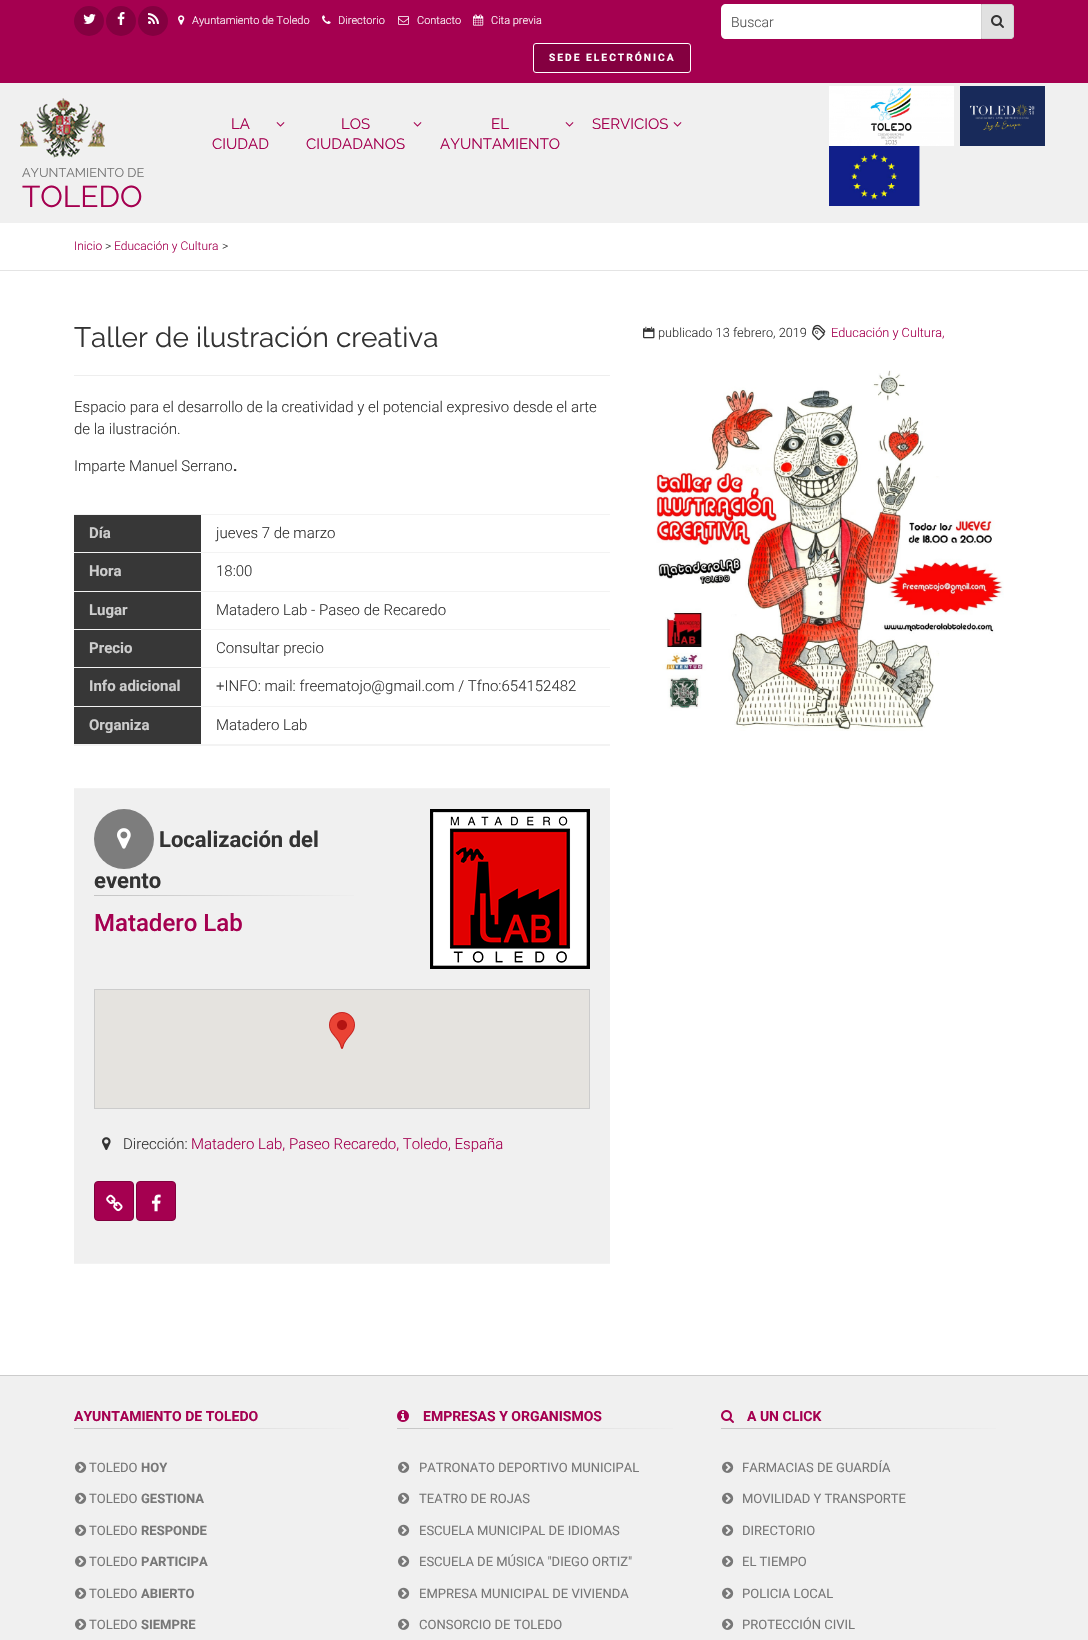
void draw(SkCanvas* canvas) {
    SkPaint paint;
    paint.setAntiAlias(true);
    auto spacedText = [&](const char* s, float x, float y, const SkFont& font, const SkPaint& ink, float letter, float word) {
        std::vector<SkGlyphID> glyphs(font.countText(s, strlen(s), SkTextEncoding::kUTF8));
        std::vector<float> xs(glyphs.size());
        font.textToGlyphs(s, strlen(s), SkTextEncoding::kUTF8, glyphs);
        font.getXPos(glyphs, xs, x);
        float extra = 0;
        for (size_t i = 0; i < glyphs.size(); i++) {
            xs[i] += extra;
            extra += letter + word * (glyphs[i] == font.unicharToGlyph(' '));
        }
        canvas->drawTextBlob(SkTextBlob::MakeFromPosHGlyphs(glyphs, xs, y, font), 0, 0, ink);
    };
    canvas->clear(0xFFFFFFFF);
    paint.setColor(0xFFA50050);
    canvas->drawRect(SkRect::MakeXYWH(0, 0, 1088, 83), paint);
    paint.setColor(0xFF840040);
    canvas->drawCircle(89, 21, 15, paint);
    canvas->drawImageRect(SkImages::DeferredFromEncodedData(SkData::MakeFromFileName("img1.png")), SkRect::MakeXYWH(83, 14, 13, 10), SkSamplingOptions());
    canvas->drawCircle(121, 21, 15, paint);
    canvas->drawImageRect(SkImages::DeferredFromEncodedData(SkData::MakeFromFileName("img2.png")), SkRect::MakeXYWH(117, 12, 8, 13), SkSamplingOptions());
    canvas->drawCircle(153, 21, 15, paint);
    canvas->drawImageRect(SkImages::DeferredFromEncodedData(SkData::MakeFromFileName("img3.png")), SkRect::MakeXYWH(148, 13, 11, 11), SkSamplingOptions());
    canvas->drawImageRect(SkImages::DeferredFromEncodedData(SkData::MakeFromFileName("img4.png")), SkRect::MakeXYWH(178, 15, 7, 10), SkSamplingOptions());
    SkFont font1(fontMgr->matchFamilyStyle("Roboto", SkFontStyle(300, SkFontStyle::kNormal_Width, SkFontStyle::kUpright_Slant)), 11);
    font1.setSubpixel(true);
    paint.setColor(0xFFFFFFFF);
    canvas->drawString("Ayuntamiento de Toledo", 192, 24, font1, paint);
    canvas->drawImageRect(SkImages::DeferredFromEncodedData(SkData::MakeFromFileName("img5.png")), SkRect::MakeXYWH(322, 15, 9, 9), SkSamplingOptions());
    canvas->drawString("Directorio", 338, 24, font1, paint);
    canvas->drawImageRect(SkImages::DeferredFromEncodedData(SkData::MakeFromFileName("img6.png")), SkRect::MakeXYWH(398, 16, 11, 9), SkSamplingOptions());
    canvas->drawString("Contacto", 417, 24, font1, paint);
    canvas->drawImageRect(SkImages::DeferredFromEncodedData(SkData::MakeFromFileName("img7.png")), SkRect::MakeXYWH(473, 14, 11, 12), SkSamplingOptions());
    canvas->drawString("Cita previa", 491, 24, font1, paint);
    paint.setColor(0xFF840040);
    canvas->drawRoundRect(SkRect::MakeXYWH(533.5f, 43.5f, 157, 29), 2.5f, 2.5f, paint);
    paint.setStyle(SkPaint::kStroke_Style);
    paint.setStrokeWidth(1);
    paint.setColor(0xFFFFFFFF);
    canvas->drawRoundRect(SkRect::MakeXYWH(533.5f, 43.5f, 157, 29), 2.5f, 2.5f, paint);
    SkFont font2(fontMgr->matchFamilyStyle("Roboto", SkFontStyle::Bold()), 10.25f);
    font2.setSubpixel(true);
    paint.setStyle(SkPaint::kFill_Style);
    spacedText("SEDE ELECTRÓNICA", 549, 61, font2, paint, 2, 0);
    canvas->drawPath(SkPathBuilder().moveTo(726, 4).lineTo(981, 4).lineTo(981, 39).lineTo(726, 39).cubicTo(723, 39, 721, 37, 721, 34).lineTo(721, 9).cubicTo(721, 6, 723, 4, 726, 4).close().detach(), paint);
    SkFont font3(fontMgr->matchFamilyStyle("Roboto", SkFontStyle(300, SkFontStyle::kNormal_Width, SkFontStyle::kUpright_Slant)), 14);
    font3.setSubpixel(true);
    paint.setColor(0xFF505050);
    canvas->drawString("Buscar", 731, 27, font3, paint);
    paint.setColor(0xFFE1E1E1);
    canvas->drawPath(SkPathBuilder().moveTo(981.5f, 4.5f).lineTo(1011, 4.5f).cubicTo(1012.5f, 4.5f, 1013.5f, 5.5f, 1013.5f, 7).lineTo(1013.5f, 36).cubicTo(1013.5f, 37.5f, 1012.5f, 38.5f, 1011, 38.5f).lineTo(981.5f, 38.5f).close().detach(), paint);
    paint.setStyle(SkPaint::kStroke_Style);
    paint.setColor(0xFFD3D3D3);
    canvas->drawPath(SkPathBuilder().moveTo(981.5f, 4.5f).lineTo(1011, 4.5f).cubicTo(1012.5f, 4.5f, 1013.5f, 5.5f, 1013.5f, 7).lineTo(1013.5f, 36).cubicTo(1013.5f, 37.5f, 1012.5f, 38.5f, 1011, 38.5f).lineTo(981.5f, 38.5f).close().detach(), paint);
    canvas->drawImageRect(SkImages::DeferredFromEncodedData(SkData::MakeFromFileName("img8.png")), SkRect::MakeXYWH(991, 15, 13, 13), SkSamplingOptions());
    paint.setStyle(SkPaint::kFill_Style);
    paint.setColor(0xFFF0F0F0);
    canvas->drawRect(SkRect::MakeXYWH(0, 83, 1088, 140), paint);
    SkFont font4(fontMgr->matchFamilyStyle("Raleway", SkFontStyle::Normal()), 15);
    font4.setSubpixel(true);
    paint.setColor(0xFFA50050);
    canvas->drawString("LA", 231, 129, font4, paint);
    canvas->drawImageRect(SkImages::DeferredFromEncodedData(SkData::MakeFromFileName("img9.png")), SkRect::MakeXYWH(276, 122, 9, 5), SkSamplingOptions());
    canvas->drawString("CIUDAD", 212, 149, font4, paint);
    canvas->drawString("LOS", 341, 129, font4, paint);
    canvas->drawImageRect(SkImages::DeferredFromEncodedData(SkData::MakeFromFileName("img9.png")), SkRect::MakeXYWH(413, 122, 9, 5), SkSamplingOptions());
    canvas->drawString("CIUDADANOS", 306, 149, font4, paint);
    canvas->drawString("EL", 491, 129, font4, paint);
    canvas->drawImageRect(SkImages::DeferredFromEncodedData(SkData::MakeFromFileName("img9.png")), SkRect::MakeXYWH(565, 122, 9, 5), SkSamplingOptions());
    canvas->drawString("AYUNTAMIENTO", 440, 149, font4, paint);
    canvas->drawString("SERVICIOS", 592, 129, font4, paint);
    canvas->drawImageRect(SkImages::DeferredFromEncodedData(SkData::MakeFromFileName("img9.png")), SkRect::MakeXYWH(673, 122, 9, 5), SkSamplingOptions());
    canvas->drawImageRect(SkImages::DeferredFromEncodedData(SkData::MakeFromFileName("img10.png")), SkRect::MakeXYWH(829, 86, 125, 60), SkSamplingOptions());
    canvas->drawImageRect(SkImages::DeferredFromEncodedData(SkData::MakeFromFileName("img11.png")), SkRect::MakeXYWH(960, 86, 85, 60), SkSamplingOptions());
    canvas->drawImageRect(SkImages::DeferredFromEncodedData(SkData::MakeFromFileName("img12.png")), SkRect::MakeXYWH(829, 146, 91, 60), SkSamplingOptions());
    canvas->drawImageRect(SkImages::DeferredFromEncodedData(SkData::MakeFromFileName("img13.png")), SkRect::MakeXYWH(20, 98, 85, 60), SkSamplingOptions());
    SkFont font5(fontMgr->matchFamilyStyle("Raleway", SkFontStyle::Normal()), 12.75f);
    font5.setSubpixel(true);
    paint.setColor(0xFF777777);
    canvas->drawString("AYUNTAMIENTO DE", 22, 177, font5, paint);
    SkFont font6(fontMgr->matchFamilyStyle("Raleway", SkFontStyle::Normal()), 30);
    font6.setSubpixel(true);
    paint.setColor(0xFFA50050);
    canvas->drawString("TOLEDO", 22, 207, font6, paint);
    paint.setColor(0xFFE4E4E4);
    canvas->drawRect(SkRect::MakeXYWH(0, 270, 1088, 1), paint);
    SkFont font7(fontMgr->matchFamilyStyle("Roboto", SkFontStyle(300, SkFontStyle::kNormal_Width, SkFontStyle::kUpright_Slant)), 12);
    font7.setSubpixel(true);
    paint.setColor(0xFFA50050);
    canvas->drawString("Inicio", 74, 250, font7, paint);
    paint.setColor(0xFF333333);
    canvas->drawString(">", 105, 250, font7, paint);
    paint.setColor(0xFFA50050);
    canvas->drawString("Educación y Cultura", 114, 250, font7, paint);
    paint.setColor(0xFF333333);
    canvas->drawString(">", 222, 250, font7, paint);
    SkFont font8(fontMgr->matchFamilyStyle("Raleway", SkFontStyle::Normal()), 28);
    font8.setSubpixel(true);
    canvas->drawString("Taller de ilustración creativa", 74, 347, font8, paint);
    paint.setColor(0xFFEEEEEE);
    canvas->drawRect(SkRect::MakeXYWH(74, 375, 536, 1), paint);
    SkFont font9(fontMgr->matchFamilyStyle("Roboto", SkFontStyle(300, SkFontStyle::kNormal_Width, SkFontStyle::kUpright_Slant)), 15);
    font9.setSubpixel(true);
    paint.setColor(0xFF333333);
    canvas->drawString("Espacio para el desarrollo de la creatividad y el potencial expresivo desde el arte", 74, 412, font9, paint);
    canvas->drawString("de la ilustración.", 74, 434, font9, paint);
    canvas->drawString("Imparte Manuel Serrano", 74, 471, font9, paint);
    SkFont font10(fontMgr->matchFamilyStyle("Roboto", SkFontStyle::Bold()), 15);
    font10.setSubpixel(true);
    canvas->drawString(".", 233, 471, font10, paint);
    paint.setColor(0xFFF3F3F3);
    canvas->drawRect(SkRect::MakeXYWH(74, 744, 536, 2), paint);
    paint.setColor(0xFF373737);
    canvas->drawRect(SkRect::MakeXYWH(74, 515, 127, 37), paint);
    paint.setColor(0xFFCDCDCD);
    canvas->drawString("Día", 89, 538, font10, paint);
    paint.setColor(0xFFF3F3F3);
    canvas->drawRect(SkRect::MakeXYWH(74, 514, 536, 1), paint);
    paint.setColor(0xFF333333);
    canvas->drawString("jueves 7 de marzo", 216, 538, font9, paint);
    paint.setColor(0xFF373737);
    canvas->drawRect(SkRect::MakeXYWH(74, 553, 127, 38), paint);
    paint.setColor(0xFFCDCDCD);
    canvas->drawString("Hora", 89, 576, font10, paint);
    paint.setColor(0xFFF3F3F3);
    canvas->drawRect(SkRect::MakeXYWH(74, 552, 536, 1), paint);
    paint.setColor(0xFF333333);
    canvas->drawString("18:00", 216, 576, font9, paint);
    paint.setColor(0xFF373737);
    canvas->drawRect(SkRect::MakeXYWH(74, 592, 127, 37), paint);
    paint.setColor(0xFFCDCDCD);
    canvas->drawString("Lugar", 89, 615, font10, paint);
    paint.setColor(0xFFF3F3F3);
    canvas->drawRect(SkRect::MakeXYWH(74, 591, 536, 1), paint);
    paint.setColor(0xFF333333);
    canvas->drawString("Matadero Lab - Paseo de Recaredo", 216, 615, font9, paint);
    paint.setColor(0xFF373737);
    canvas->drawRect(SkRect::MakeXYWH(74, 630, 127, 37), paint);
    paint.setColor(0xFFCDCDCD);
    canvas->drawString("Precio", 89, 653, font10, paint);
    paint.setColor(0xFFF3F3F3);
    canvas->drawRect(SkRect::MakeXYWH(74, 629, 536, 1), paint);
    paint.setColor(0xFF333333);
    canvas->drawString("Consultar precio", 216, 653, font9, paint);
    paint.setColor(0xFF373737);
    canvas->drawRect(SkRect::MakeXYWH(74, 668, 127, 38), paint);
    paint.setColor(0xFFCDCDCD);
    canvas->drawString("Info adicional", 89, 691, font10, paint);
    paint.setColor(0xFFF3F3F3);
    canvas->drawRect(SkRect::MakeXYWH(74, 667, 536, 1), paint);
    paint.setColor(0xFF333333);
    canvas->drawString("+INFO: mail: freematojo@gmail.com / Tfno:654152482", 216, 691, font9, paint);
    paint.setColor(0xFF373737);
    canvas->drawRect(SkRect::MakeXYWH(74, 707, 127, 37), paint);
    paint.setColor(0xFFCDCDCD);
    canvas->drawString("Organiza", 89, 730, font10, paint);
    paint.setColor(0xFFF3F3F3);
    canvas->drawRect(SkRect::MakeXYWH(74, 706, 536, 1), paint);
    paint.setColor(0xFF333333);
    canvas->drawString("Matadero Lab", 216, 730, font9, paint);
    paint.setColor(0xFFF0F0F0);
    canvas->drawRect(SkRect::MakeXYWH(74, 789, 536, 474), paint);
    paint.setColor(0xFFF3F3F3);
    canvas->drawRect(SkRect::MakeXYWH(74, 788, 536, 1), paint);
    canvas->drawRect(SkRect::MakeXYWH(74, 1263, 536, 1), paint);
    paint.setColor(0xFF7D7D7D);
    canvas->drawCircle(124, 839, 30, paint);
    canvas->drawImageRect(SkImages::DeferredFromEncodedData(SkData::MakeFromFileName("img14.png")), SkRect::MakeXYWH(117, 828, 14, 21), SkSamplingOptions());
    SkFont font11(fontMgr->matchFamilyStyle("Roboto", SkFontStyle::Bold()), 22);
    font11.setSubpixel(true);
    paint.setColor(0xFF333333);
    canvas->drawString("Localización del", 159, 847, font11, paint);
    canvas->drawString("evento", 94, 888, font11, paint);
    {
        const SkColor colors[] = {0xFFC5C5C5, 0xFFD3D3D3, 0xFFE4E4E4, 0xFFF0F0F0};
        const float stops[] = {0, 0.35f, 0.7f, 1};
        const SkPoint ends[] = {{94, 896}, {371, 896}};
        paint.setShader(SkGradientShader::MakeLinear(ends, colors, stops, 4, SkTileMode::kClamp));
        paint.setAlpha(255);
    }
    canvas->drawRect(SkRect::MakeXYWH(94, 895, 260, 1), paint);
    SkFont font12(fontMgr->matchFamilyStyle("Roboto", SkFontStyle(500, SkFontStyle::kNormal_Width, SkFontStyle::kUpright_Slant)), 24);
    font12.setSubpixel(true);
    paint.setShader(nullptr);
    paint.setColor(0xFFA50050);
    canvas->drawString("Matadero Lab", 94, 931, font12, paint);
    canvas->drawImageRect(SkImages::DeferredFromEncodedData(SkData::MakeFromFileName("img15.png")), SkRect::MakeXYWH(430, 809, 160, 160), SkSamplingOptions());
    paint.setStyle(SkPaint::kStroke_Style);
    paint.setColor(0xFFCCCCCC);
    canvas->drawRect(SkRect::MakeXYWH(94.5f, 989.5f, 495, 119), paint);
    paint.setStyle(SkPaint::kFill_Style);
    paint.setColor(0xFFE5E3DF);
    canvas->drawRect(SkRect::MakeXYWH(95, 990, 494, 118), paint);
    canvas->drawImageRect(SkImages::DeferredFromEncodedData(SkData::MakeFromFileName("img16.png")), SkRect::MakeXYWH(329, 1012, 26, 37), SkSamplingOptions());
    canvas->drawImageRect(SkImages::DeferredFromEncodedData(SkData::MakeFromFileName("img17.png")), SkRect::MakeXYWH(102, 1137, 9, 13), SkSamplingOptions());
    paint.setColor(0xFF333333);
    canvas->drawString("Dirección:", 123, 1149, font9, paint);
    paint.setColor(0xFFA50050);
    canvas->drawString("Matadero Lab, Paseo Recaredo, Toledo, España", 191, 1149, font9, paint);
    canvas->drawRoundRect(SkRect::MakeXYWH(94.5f, 1181.5f, 39, 39), 3.5f, 3.5f, paint);
    paint.setStyle(SkPaint::kStroke_Style);
    paint.setColor(0xFF80003D);
    canvas->drawRoundRect(SkRect::MakeXYWH(94.5f, 1181.5f, 39, 39), 3.5f, 3.5f, paint);
    canvas->drawImageRect(SkImages::DeferredFromEncodedData(SkData::MakeFromFileName("img18.png")), SkRect::MakeXYWH(106, 1194, 17, 18), SkSamplingOptions());
    paint.setStyle(SkPaint::kFill_Style);
    paint.setColor(0xFFA50050);
    canvas->drawRoundRect(SkRect::MakeXYWH(136.5f, 1181.5f, 39, 39), 3.5f, 3.5f, paint);
    paint.setStyle(SkPaint::kStroke_Style);
    paint.setColor(0xFF80003D);
    canvas->drawRoundRect(SkRect::MakeXYWH(136.5f, 1181.5f, 39, 39), 3.5f, 3.5f, paint);
    canvas->drawImageRect(SkImages::DeferredFromEncodedData(SkData::MakeFromFileName("img19.png")), SkRect::MakeXYWH(151, 1194, 10, 18), SkSamplingOptions());
    canvas->drawImageRect(SkImages::DeferredFromEncodedData(SkData::MakeFromFileName("img20.png")), SkRect::MakeXYWH(643, 326, 12, 13), SkSamplingOptions());
    SkFont font13(fontMgr->matchFamilyStyle("Roboto", SkFontStyle(300, SkFontStyle::kNormal_Width, SkFontStyle::kUpright_Slant)), 12.75f);
    font13.setSubpixel(true);
    paint.setStyle(SkPaint::kFill_Style);
    paint.setColor(0xFF333333);
    canvas->drawString("publicado 13 febrero, 2019", 658, 337, font13, paint);
    canvas->drawImageRect(SkImages::DeferredFromEncodedData(SkData::MakeFromFileName("img21.png")), SkRect::MakeXYWH(812, 324, 14, 17), SkSamplingOptions());
    paint.setColor(0xFFA50050);
    canvas->drawString("Educación y Cultura,", 831, 337, font13, paint);
    canvas->drawImageRect(SkImages::DeferredFromEncodedData(SkData::MakeFromFileName("img22.png")), SkRect::MakeXYWH(656, 370, 348, 361), SkSamplingOptions());
    paint.setColor(0xFFF0F0F0);
    canvas->drawRect(SkRect::MakeXYWH(0, 1376, 1088, 264), paint);
    paint.setColor(0xFFCCCCCC);
    canvas->drawRect(SkRect::MakeXYWH(0, 1375, 1088, 1), paint);
    SkFont font14(fontMgr->matchFamilyStyle("Roboto", SkFontStyle::Bold()), 14);
    font14.setSubpixel(true);
    paint.setColor(0xFFA50050);
    canvas->drawString("AYUNTAMIENTO DE TOLEDO", 74, 1421, font14, paint);
    {
        const SkColor colors[] = {0xFFC5C5C5, 0xFFD3D3D3, 0xFFE4E4E4, 0xFFF0F0F0};
        const float stops[] = {0, 0.35f, 0.7f, 1};
        const SkPoint ends[] = {{74, 1429}, {367, 1429}};
        paint.setShader(SkGradientShader::MakeLinear(ends, colors, stops, 4, SkTileMode::kClamp));
        paint.setAlpha(255);
    }
    canvas->drawRect(SkRect::MakeXYWH(74, 1428, 275, 1), paint);
    canvas->drawImageRect(SkImages::DeferredFromEncodedData(SkData::MakeFromFileName("img23.png")), SkRect::MakeXYWH(75, 1461, 12, 12), SkSamplingOptions());
    SkFont font15(fontMgr->matchFamilyStyle("Roboto", SkFontStyle::Normal()), 13);
    font15.setSubpixel(true);
    paint.setShader(nullptr);
    paint.setColor(0xFF777777);
    canvas->drawString("TOLEDO", 89, 1472, font15, paint);
    SkFont font16(fontMgr->matchFamilyStyle("Roboto", SkFontStyle::Bold()), 13);
    font16.setSubpixel(true);
    canvas->drawString("HOY", 141, 1472, font16, paint);
    canvas->drawImageRect(SkImages::DeferredFromEncodedData(SkData::MakeFromFileName("img23.png")), SkRect::MakeXYWH(75, 1492, 12, 12), SkSamplingOptions());
    canvas->drawString("TOLEDO", 89, 1503, font15, paint);
    canvas->drawString("GESTIONA", 141, 1503, font16, paint);
    canvas->drawImageRect(SkImages::DeferredFromEncodedData(SkData::MakeFromFileName("img23.png")), SkRect::MakeXYWH(75, 1524, 12, 12), SkSamplingOptions());
    canvas->drawString("TOLEDO", 89, 1535, font15, paint);
    canvas->drawString("RESPONDE", 141, 1535, font16, paint);
    canvas->drawImageRect(SkImages::DeferredFromEncodedData(SkData::MakeFromFileName("img23.png")), SkRect::MakeXYWH(75, 1555, 12, 12), SkSamplingOptions());
    canvas->drawString("TOLEDO", 89, 1566, font15, paint);
    canvas->drawString("PARTICIPA", 141, 1566, font16, paint);
    canvas->drawImageRect(SkImages::DeferredFromEncodedData(SkData::MakeFromFileName("img23.png")), SkRect::MakeXYWH(75, 1587, 12, 12), SkSamplingOptions());
    canvas->drawString("TOLEDO", 89, 1598, font15, paint);
    canvas->drawString("ABIERTO", 141, 1598, font16, paint);
    canvas->drawImageRect(SkImages::DeferredFromEncodedData(SkData::MakeFromFileName("img23.png")), SkRect::MakeXYWH(75, 1618, 12, 12), SkSamplingOptions());
    canvas->drawString("TOLEDO", 89, 1629, font15, paint);
    canvas->drawString("SIEMPRE", 141, 1629, font16, paint);
    canvas->drawImageRect(SkImages::DeferredFromEncodedData(SkData::MakeFromFileName("img24.png")), SkRect::MakeXYWH(397, 1410, 12, 12), SkSamplingOptions());
    paint.setColor(0xFFA50050);
    canvas->drawString("EMPRESAS Y ORGANISMOS", 423, 1421, font14, paint);
    {
        const SkColor colors[] = {0xFFC5C5C5, 0xFFD3D3D3, 0xFFE4E4E4, 0xFFF0F0F0};
        const float stops[] = {0, 0.35f, 0.7f, 1};
        const SkPoint ends[] = {{397, 1429}, {691, 1429}};
        paint.setShader(SkGradientShader::MakeLinear(ends, colors, stops, 4, SkTileMode::kClamp));
        paint.setAlpha(255);
    }
    canvas->drawRect(SkRect::MakeXYWH(397, 1428, 276, 1), paint);
    canvas->drawImageRect(SkImages::DeferredFromEncodedData(SkData::MakeFromFileName("img23.png")), SkRect::MakeXYWH(398, 1461, 12, 12), SkSamplingOptions());
    paint.setShader(nullptr);
    paint.setColor(0xFF777777);
    canvas->drawString("PATRONATO DEPORTIVO MUNICIPAL", 419, 1472, font15, paint);
    canvas->drawImageRect(SkImages::DeferredFromEncodedData(SkData::MakeFromFileName("img23.png")), SkRect::MakeXYWH(398, 1492, 12, 12), SkSamplingOptions());
    canvas->drawString("TEATRO DE ROJAS", 419, 1503, font15, paint);
    canvas->drawImageRect(SkImages::DeferredFromEncodedData(SkData::MakeFromFileName("img23.png")), SkRect::MakeXYWH(398, 1524, 12, 12), SkSamplingOptions());
    canvas->drawString("ESCUELA MUNICIPAL DE IDIOMAS", 419, 1535, font15, paint);
    canvas->drawImageRect(SkImages::DeferredFromEncodedData(SkData::MakeFromFileName("img23.png")), SkRect::MakeXYWH(398, 1555, 12, 12), SkSamplingOptions());
    canvas->drawString("ESCUELA DE MÚSICA \"DIEGO ORTIZ\"", 419, 1566, font15, paint);
    canvas->drawImageRect(SkImages::DeferredFromEncodedData(SkData::MakeFromFileName("img23.png")), SkRect::MakeXYWH(398, 1587, 12, 12), SkSamplingOptions());
    canvas->drawString("EMPRESA MUNICIPAL DE VIVIENDA", 419, 1598, font15, paint);
    canvas->drawImageRect(SkImages::DeferredFromEncodedData(SkData::MakeFromFileName("img23.png")), SkRect::MakeXYWH(398, 1618, 12, 12), SkSamplingOptions());
    canvas->drawString("CONSORCIO DE TOLEDO", 419, 1629, font15, paint);
    canvas->drawImageRect(SkImages::DeferredFromEncodedData(SkData::MakeFromFileName("img25.png")), SkRect::MakeXYWH(721, 1410, 13, 13), SkSamplingOptions());
    paint.setColor(0xFFA50050);
    canvas->drawString("A UN CLICK", 747, 1421, font14, paint);
    {
        const SkColor colors[] = {0xFFC5C5C5, 0xFFD3D3D3, 0xFFE4E4E4, 0xFFF0F0F0};
        const float stops[] = {0, 0.35f, 0.7f, 1};
        const SkPoint ends[] = {{721, 1429}, {1014, 1429}};
        paint.setShader(SkGradientShader::MakeLinear(ends, colors, stops, 4, SkTileMode::kClamp));
        paint.setAlpha(255);
    }
    canvas->drawRect(SkRect::MakeXYWH(721, 1428, 275, 1), paint);
    canvas->drawImageRect(SkImages::DeferredFromEncodedData(SkData::MakeFromFileName("img23.png")), SkRect::MakeXYWH(722, 1461, 12, 12), SkSamplingOptions());
    paint.setShader(nullptr);
    paint.setColor(0xFF777777);
    canvas->drawString("FARMACIAS DE GUARDÍA", 742, 1472, font15, paint);
    canvas->drawImageRect(SkImages::DeferredFromEncodedData(SkData::MakeFromFileName("img23.png")), SkRect::MakeXYWH(722, 1492, 12, 12), SkSamplingOptions());
    canvas->drawString("MOVILIDAD Y TRANSPORTE", 742, 1503, font15, paint);
    canvas->drawImageRect(SkImages::DeferredFromEncodedData(SkData::MakeFromFileName("img23.png")), SkRect::MakeXYWH(722, 1524, 12, 12), SkSamplingOptions());
    canvas->drawString("DIRECTORIO", 742, 1535, font15, paint);
    canvas->drawImageRect(SkImages::DeferredFromEncodedData(SkData::MakeFromFileName("img23.png")), SkRect::MakeXYWH(722, 1555, 12, 12), SkSamplingOptions());
    canvas->drawString("EL TIEMPO", 742, 1566, font15, paint);
    canvas->drawImageRect(SkImages::DeferredFromEncodedData(SkData::MakeFromFileName("img23.png")), SkRect::MakeXYWH(722, 1587, 12, 12), SkSamplingOptions());
    canvas->drawString("POLICIA LOCAL", 742, 1598, font15, paint);
    canvas->drawImageRect(SkImages::DeferredFromEncodedData(SkData::MakeFromFileName("img23.png")), SkRect::MakeXYWH(722, 1618, 12, 12), SkSamplingOptions());
    canvas->drawString("PROTECCIÓN CIVIL", 742, 1629, font15, paint);
}
